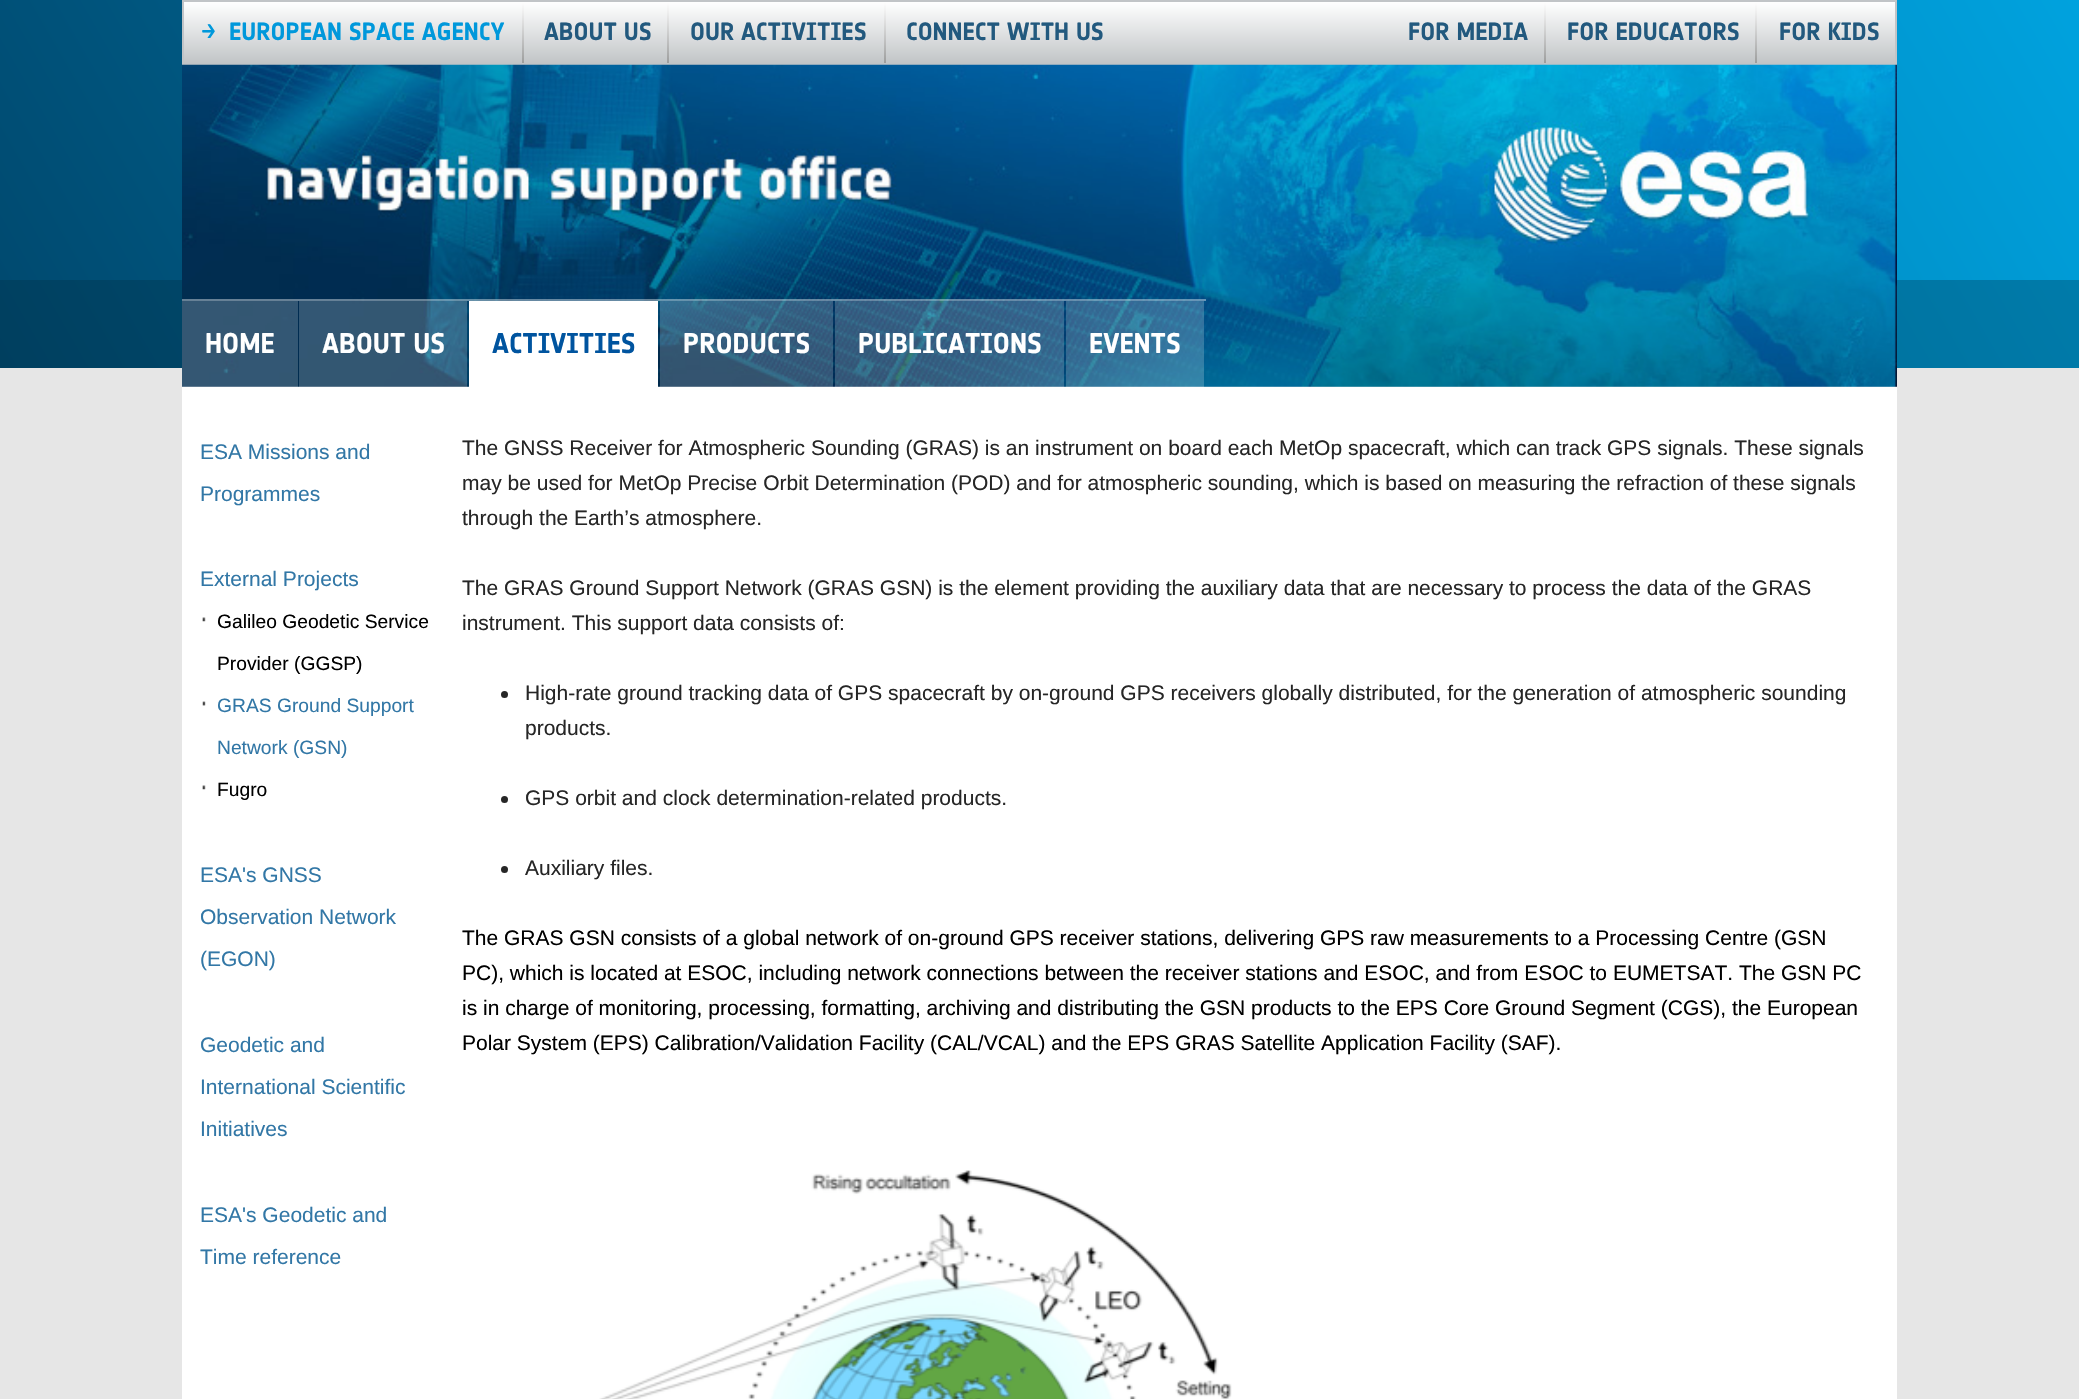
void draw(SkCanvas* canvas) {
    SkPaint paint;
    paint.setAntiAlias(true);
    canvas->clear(0xFFE6E6E6);
    {
        const SkColor colors[] = {0xFF004A70, 0xFF00A2DE};
        const float stops[] = {0, 1};
        const SkPoint ends[] = {{199, 625}, {1880, -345}};
        paint.setShader(SkGradientShader::MakeLinear(ends, colors, stops, 2, SkTileMode::kClamp));
        paint.setAlpha(255);
    }
    canvas->drawRect(SkRect::MakeXYWH(0, 0, 2079, 280), paint);
    {
        const SkColor colors[] = {0xFFC2C5C7, 0xFFFFFFFF};
        const float stops[] = {0, 1};
        const SkPoint ends[] = {{1040, 63}, {1040, 1.8f}};
        paint.setShader(SkGradientShader::MakeLinear(ends, colors, stops, 2, SkTileMode::kClamp));
        paint.setAlpha(255);
    }
    canvas->drawRect(SkRect::MakeXYWH(184, 2, 1711, 61), paint);
    paint.setStyle(SkPaint::kStroke_Style);
    paint.setStrokeWidth(2);
    paint.setShader(nullptr);
    paint.setColor(0xFFC1C4C7);
    canvas->drawRect(SkRect::MakeXYWH(183, 1, 1713, 63), paint);
    SkFont font1(fontMgr->matchFamilyStyle("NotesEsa", SkFontStyle::Normal()), 30);
    font1.setSubpixel(true);
    paint.setStyle(SkPaint::kFill_Style);
    paint.setColor(0xFF0098DB);
    canvas->drawString("→", 201, 42, font1, paint);
    SkFont font2(fontMgr->matchFamilyStyle("NotesEsa", SkFontStyle::Bold()), 24.5f);
    font2.setSubpixel(true);
    canvas->drawString("EUROPEAN SPACE AGENCY", 229, 40, font2, paint);
    {
        const SkColor colors[] = {0xFFFFFFFF, 0xFF9C9D9D};
        const float stops[] = {0, 1};
        const SkPoint ends[] = {{522, 1.8f}, {522, 63}};
        paint.setShader(SkGradientShader::MakeLinear(ends, colors, stops, 2, SkTileMode::kClamp));
        paint.setAlpha(255);
    }
    canvas->drawRect(SkRect::MakeXYWH(522, 2, 2, 61), paint);
    paint.setShader(nullptr);
    paint.setColor(0xFF22597E);
    canvas->drawString("ABOUT US", 544, 40, font2, paint);
    {
        const SkColor colors[] = {0xFFFFFFFF, 0xFF9C9D9D};
        const float stops[] = {0, 1};
        const SkPoint ends[] = {{668, 1.8f}, {668, 63}};
        paint.setShader(SkGradientShader::MakeLinear(ends, colors, stops, 2, SkTileMode::kClamp));
        paint.setAlpha(255);
    }
    canvas->drawRect(SkRect::MakeXYWH(667, 2, 2, 61), paint);
    paint.setShader(nullptr);
    paint.setColor(0xFF22597E);
    canvas->drawString("OUR ACTIVITIES", 690, 40, font2, paint);
    {
        const SkColor colors[] = {0xFFFFFFFF, 0xFF9C9D9D};
        const float stops[] = {0, 1};
        const SkPoint ends[] = {{885, 1.8f}, {885, 63}};
        paint.setShader(SkGradientShader::MakeLinear(ends, colors, stops, 2, SkTileMode::kClamp));
        paint.setAlpha(255);
    }
    canvas->drawRect(SkRect::MakeXYWH(884, 2, 2, 61), paint);
    paint.setShader(nullptr);
    paint.setColor(0xFF22597E);
    canvas->drawString("CONNECT WITH US", 906, 40, font2, paint);
    canvas->drawString("FOR MEDIA", 1408, 40, font2, paint);
    {
        const SkColor colors[] = {0xFFFFFFFF, 0xFF9C9D9D};
        const float stops[] = {0, 1};
        const SkPoint ends[] = {{1544, 1.8f}, {1544, 63}};
        paint.setShader(SkGradientShader::MakeLinear(ends, colors, stops, 2, SkTileMode::kClamp));
        paint.setAlpha(255);
    }
    canvas->drawRect(SkRect::MakeXYWH(1544, 2, 2, 61), paint);
    paint.setShader(nullptr);
    paint.setColor(0xFF22597E);
    canvas->drawString("FOR EDUCATORS", 1567, 40, font2, paint);
    {
        const SkColor colors[] = {0xFFFFFFFF, 0xFF9C9D9D};
        const float stops[] = {0, 1};
        const SkPoint ends[] = {{1756, 1.8f}, {1756, 63}};
        paint.setShader(SkGradientShader::MakeLinear(ends, colors, stops, 2, SkTileMode::kClamp));
        paint.setAlpha(255);
    }
    canvas->drawRect(SkRect::MakeXYWH(1755, 2, 2, 61), paint);
    paint.setShader(nullptr);
    paint.setColor(0xFF22597E);
    canvas->drawString("FOR KIDS", 1779, 40, font2, paint);
    {
        const SkColor colors[] = {0xFF003F5F, 0xFF007BAA};
        const float stops[] = {0, 1};
        const SkPoint ends[] = {{241, 785}, {1838, -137}};
        paint.setShader(SkGradientShader::MakeLinear(ends, colors, stops, 2, SkTileMode::kClamp));
        paint.setAlpha(255);
    }
    canvas->drawRect(SkRect::MakeXYWH(0, 280, 2079, 88), paint);
    canvas->drawImageRect(SkImages::DeferredFromEncodedData(SkData::MakeFromFileName("img1.png")), SkRect::MakeXYWH(182, 64, 1715, 323), SkSamplingOptions());
    paint.setShader(nullptr);
    paint.setColor(0xFF678196);
    canvas->drawRect(SkRect::MakeXYWH(182, 299, 117, 2), paint);
    paint.setColor(0x33FFFFFF);
    canvas->drawRect(SkRect::MakeXYWH(182, 301, 116, 86), paint);
    SkFont font3(fontMgr->matchFamilyStyle("NotesEsa", SkFontStyle::Bold()), 28);
    font3.setSubpixel(true);
    paint.setColor(0xFFFFFFFF);
    canvas->drawString("HOME", 205, 353, font3, paint);
    paint.setColor(0x66FFFFFF);
    canvas->drawRect(SkRect::MakeXYWH(299, 299, 170, 2), paint);
    paint.setColor(0x33FFFFFF);
    canvas->drawRect(SkRect::MakeXYWH(299, 301, 168, 86), paint);
    paint.setColor(0xFFFFFFFF);
    canvas->drawString("ABOUT US", 322, 353, font3, paint);
    paint.setColor(0x66FFFFFF);
    canvas->drawRect(SkRect::MakeXYWH(469, 299, 191, 2), paint);
    paint.setColor(0xFFFFFFFF);
    canvas->drawRect(SkRect::MakeXYWH(469, 301, 189, 86), paint);
    paint.setColor(0xFF00549F);
    canvas->drawString("ACTIVITIES", 492, 353, font3, paint);
    paint.setColor(0x66FFFFFF);
    canvas->drawRect(SkRect::MakeXYWH(660, 299, 175, 2), paint);
    paint.setColor(0x33FFFFFF);
    canvas->drawRect(SkRect::MakeXYWH(660, 301, 173, 86), paint);
    paint.setColor(0xFFFFFFFF);
    canvas->drawString("PRODUCTS", 683, 353, font3, paint);
    paint.setColor(0x66FFFFFF);
    canvas->drawRect(SkRect::MakeXYWH(835, 299, 231, 2), paint);
    paint.setColor(0x33FFFFFF);
    canvas->drawRect(SkRect::MakeXYWH(835, 301, 229, 86), paint);
    paint.setColor(0xFFFFFFFF);
    canvas->drawString("PUBLICATIONS", 858, 353, font3, paint);
    paint.setColor(0x66FFFFFF);
    canvas->drawRect(SkRect::MakeXYWH(1066, 299, 140, 2), paint);
    paint.setColor(0x33FFFFFF);
    canvas->drawRect(SkRect::MakeXYWH(1066, 301, 138, 86), paint);
    paint.setColor(0xFFFFFFFF);
    canvas->drawString("EVENTS", 1089, 353, font3, paint);
    canvas->drawRect(SkRect::MakeXYWH(182, 387, 1715, 1012), paint);
    SkFont font4(fontMgr->matchFamilyStyle("Liberation Sans", SkFontStyle::Normal()), 21);
    font4.setSubpixel(true);
    paint.setColor(0xFF3277A6);
    canvas->drawString("ESA Missions and", 200, 459, font4, paint);
    canvas->drawString("Programmes", 200, 501, font4, paint);
    canvas->drawString("External Projects", 200, 586, font4, paint);
    canvas->drawImageRect(SkImages::DeferredFromEncodedData(SkData::MakeFromFileName("img2.png")), SkRect::MakeXYWH(202, 617, 4, 5), SkSamplingOptions());
    SkFont font5(fontMgr->matchFamilyStyle("Liberation Sans", SkFontStyle::Normal()), 19.25f);
    font5.setSubpixel(true);
    paint.setColor(0xFF000000);
    canvas->drawString("Galileo Geodetic Service", 217, 628, font5, paint);
    canvas->drawString("Provider (GGSP)", 217, 670, font5, paint);
    canvas->drawImageRect(SkImages::DeferredFromEncodedData(SkData::MakeFromFileName("img3.png")), SkRect::MakeXYWH(202, 701, 4, 5), SkSamplingOptions());
    paint.setColor(0xFF3277A6);
    canvas->drawString("GRAS Ground Support", 217, 712, font5, paint);
    canvas->drawString("Network (GSN)", 217, 754, font5, paint);
    canvas->drawImageRect(SkImages::DeferredFromEncodedData(SkData::MakeFromFileName("img2.png")), SkRect::MakeXYWH(202, 785, 4, 5), SkSamplingOptions());
    paint.setColor(0xFF000000);
    canvas->drawString("Fugro", 217, 796, font5, paint);
    paint.setColor(0xFF3277A6);
    canvas->drawString("ESA's GNSS", 200, 882, font4, paint);
    canvas->drawString("Observation Network", 200, 924, font4, paint);
    canvas->drawString("(EGON)", 200, 966, font4, paint);
    canvas->drawString("Geodetic and", 200, 1052, font4, paint);
    canvas->drawString("International Scientific", 200, 1094, font4, paint);
    canvas->drawString("Initiatives", 200, 1136, font4, paint);
    canvas->drawString("ESA's Geodetic and", 200, 1222, font4, paint);
    canvas->drawString("Time reference", 200, 1264, font4, paint);
    paint.setColor(0xFF262626);
    canvas->drawString("The GNSS Receiver for Atmospheric Sounding (GRAS) is an instrument on board each MetOp spacecraft, which can track GPS signals. These signals", 462, 455, font4, paint);
    canvas->drawString("may be used for MetOp Precise Orbit Determination (POD) and for atmospheric sounding, which is based on measuring the refraction of these signals", 462, 490, font4, paint);
    canvas->drawString("through the Earth’s atmosphere.", 462, 525, font4, paint);
    canvas->drawString("The GRAS Ground Support Network (GRAS GSN) is the element providing the auxiliary data that are necessary to process the data of the GRAS", 462, 595, font4, paint);
    canvas->drawString("instrument. This support data consists of:", 462, 630, font4, paint);
    canvas->drawCircle(504.5f, 694.5f, 3.5f, paint);
    canvas->drawString("High-rate ground tracking data of GPS spacecraft by on-ground GPS receivers globally distributed, for the generation of atmospheric sounding", 525, 700, font4, paint);
    canvas->drawString("products.", 525, 735, font4, paint);
    canvas->drawCircle(504.5f, 799.5f, 3.5f, paint);
    canvas->drawString("GPS orbit and clock determination-related products.", 525, 805, font4, paint);
    canvas->drawCircle(504.5f, 869.5f, 3.5f, paint);
    canvas->drawString("Auxiliary files.", 525, 875, font4, paint);
    paint.setColor(0xFF000000);
    canvas->drawString("The GRAS GSN consists of a global network of on-ground GPS receiver stations, delivering GPS raw measurements to a Processing Centre (GSN", 462, 945, font4, paint);
    canvas->drawString("PC), which is located at ESOC, including network connections between the receiver stations and ESOC, and from ESOC to EUMETSAT. The GSN PC", 462, 980, font4, paint);
    canvas->drawString("is in charge of monitoring, processing, formatting, archiving and distributing the GSN products to the EPS Core Ground Segment (CGS), the European", 462, 1015, font4, paint);
    canvas->drawString("Polar System (EPS) Calibration/Validation Facility (CAL/VCAL) and the EPS GRAS Satellite Application Facility (SAF).", 462, 1050, font4, paint);
    canvas->drawImageRect(SkImages::DeferredFromEncodedData(SkData::MakeFromFileName("img4.png")), SkRect::MakeXYWH(599, 1170, 633, 229), SkSamplingOptions());
}
